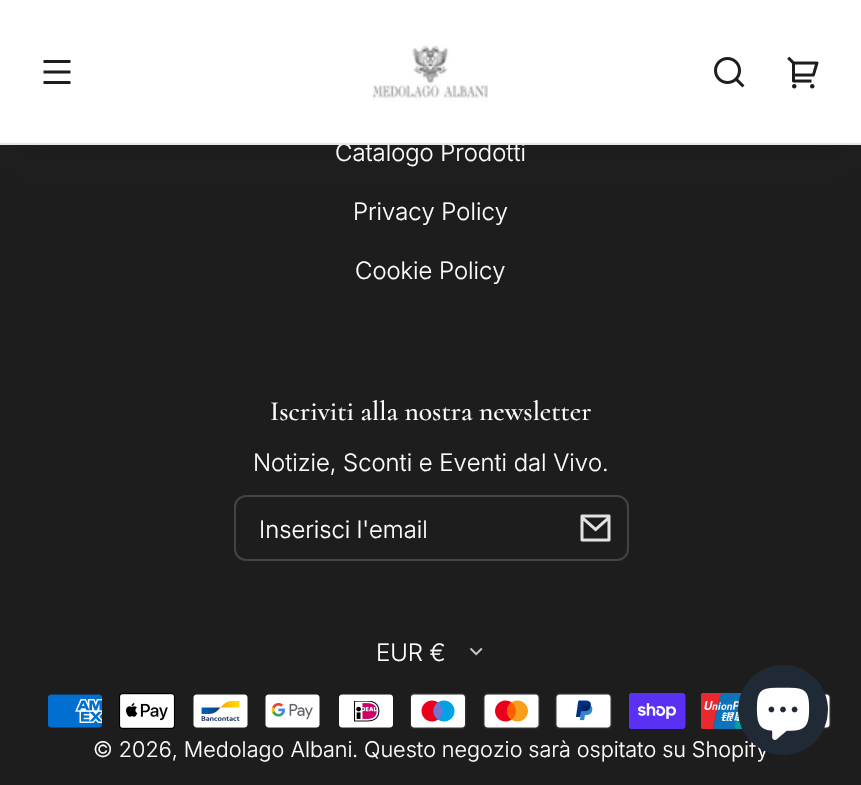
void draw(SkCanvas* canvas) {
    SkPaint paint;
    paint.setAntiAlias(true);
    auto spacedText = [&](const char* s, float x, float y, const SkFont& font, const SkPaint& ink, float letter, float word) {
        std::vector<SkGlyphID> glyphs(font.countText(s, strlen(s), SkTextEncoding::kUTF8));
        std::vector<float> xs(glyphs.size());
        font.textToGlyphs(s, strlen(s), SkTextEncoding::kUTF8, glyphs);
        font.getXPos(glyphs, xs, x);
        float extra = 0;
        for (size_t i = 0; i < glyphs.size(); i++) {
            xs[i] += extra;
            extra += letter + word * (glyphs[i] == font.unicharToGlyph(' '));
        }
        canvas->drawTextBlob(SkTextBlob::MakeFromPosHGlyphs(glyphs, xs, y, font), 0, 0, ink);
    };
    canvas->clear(0xFF1C1D1C);
    paint.setColor(0x261B1D1B);
    paint.setMaskFilter(SkMaskFilter::MakeBlur(kNormal_SkBlurStyle, 15));
    canvas->drawRect(SkRect::MakeXYWH(23, 41, 816, 99), paint);
    paint.setMaskFilter(nullptr);
    paint.setColor(0xFFFFFFFF);
    canvas->drawRect(SkRect::MakeXYWH(0, 0, 861, 143), paint);
    SkFont font1(fontMgr->matchFamilyStyle("Inter", SkFontStyle(300, SkFontStyle::kNormal_Width, SkFontStyle::kUpright_Slant)), 24);
    font1.setSubpixel(true);
    canvas->drawString("Catalogo Prodotti", 335, 161, font1, paint);
    paint.setColor(0xFFE6E6E6);
    canvas->drawRect(SkRect::MakeXYWH(0, 143, 861, 2), paint);
    canvas->drawImageRect(SkImages::DeferredFromEncodedData(SkData::MakeFromFileName("img1.png")), SkRect::MakeXYWH(43, 60, 28, 24), SkSamplingOptions());
    canvas->drawImageRect(SkImages::DeferredFromEncodedData(SkData::MakeFromFileName("img2.png")), SkRect::MakeXYWH(372, 42, 116, 60), SkSamplingOptions());
    canvas->drawImageRect(SkImages::DeferredFromEncodedData(SkData::MakeFromFileName("img3.png")), SkRect::MakeXYWH(714, 57, 31, 31), SkSamplingOptions());
    canvas->drawImageRect(SkImages::DeferredFromEncodedData(SkData::MakeFromFileName("img4.png")), SkRect::MakeXYWH(787, 56, 32, 33), SkSamplingOptions());
    paint.setColor(0xFFFFFFFF);
    canvas->drawString("Privacy Policy", 353, 220, font1, paint);
    canvas->drawString("Cookie Policy", 355, 279, font1, paint);
    SkFont font2(fontMgr->matchFamilyStyle("Cormorant", SkFontStyle(500, SkFontStyle::kNormal_Width, SkFontStyle::kUpright_Slant)), 27.6f);
    font2.setSubpixel(true);
    canvas->drawString("Iscriviti alla nostra newsletter", 270, 420, font2, paint);
    canvas->drawString("Notizie, Sconti e Eventi dal Vivo.", 253, 471, font1, paint);
    paint.setStyle(SkPaint::kStroke_Style);
    paint.setStrokeWidth(2);
    paint.setColor(0xFF434343);
    canvas->drawRoundRect(SkRect::MakeXYWH(235, 496, 393, 64), 11, 11, paint);
    paint.setStyle(SkPaint::kFill_Style);
    paint.setColor(0xFFFFFFFF);
    canvas->drawString("Inserisci l'email", 259, 538, font1, paint);
    canvas->drawImageRect(SkImages::DeferredFromEncodedData(SkData::MakeFromFileName("img5.png")), SkRect::MakeXYWH(580, 514, 31, 28), SkSamplingOptions());
    canvas->drawString("EUR €", 376, 661, font1, paint);
    canvas->drawImageRect(SkImages::DeferredFromEncodedData(SkData::MakeFromFileName("img6.png")), SkRect::MakeXYWH(469, 647, 14, 9), SkSamplingOptions());
    canvas->drawImageRect(SkImages::DeferredFromEncodedData(SkData::MakeFromFileName("img7.png")), SkRect::MakeXYWH(48, 694, 54, 34), SkSamplingOptions());
    canvas->drawImageRect(SkImages::DeferredFromEncodedData(SkData::MakeFromFileName("img8.png")), SkRect::MakeXYWH(119, 693, 56, 36), SkSamplingOptions());
    canvas->drawImageRect(SkImages::DeferredFromEncodedData(SkData::MakeFromFileName("img9.png")), SkRect::MakeXYWH(193, 694, 55, 34), SkSamplingOptions());
    canvas->drawImageRect(SkImages::DeferredFromEncodedData(SkData::MakeFromFileName("img10.png")), SkRect::MakeXYWH(265, 694, 55, 34), SkSamplingOptions());
    canvas->drawImageRect(SkImages::DeferredFromEncodedData(SkData::MakeFromFileName("img11.png")), SkRect::MakeXYWH(339, 694, 54, 34), SkSamplingOptions());
    canvas->drawImageRect(SkImages::DeferredFromEncodedData(SkData::MakeFromFileName("img12.png")), SkRect::MakeXYWH(410, 693, 57, 36), SkSamplingOptions());
    canvas->drawImageRect(SkImages::DeferredFromEncodedData(SkData::MakeFromFileName("img13.png")), SkRect::MakeXYWH(483, 693, 57, 36), SkSamplingOptions());
    canvas->drawImageRect(SkImages::DeferredFromEncodedData(SkData::MakeFromFileName("img14.png")), SkRect::MakeXYWH(555, 693, 57, 36), SkSamplingOptions());
    canvas->drawImageRect(SkImages::DeferredFromEncodedData(SkData::MakeFromFileName("img15.png")), SkRect::MakeXYWH(629, 693, 57, 36), SkSamplingOptions());
    canvas->drawImageRect(SkImages::DeferredFromEncodedData(SkData::MakeFromFileName("img16.png")), SkRect::MakeXYWH(701, 693, 42, 36), SkSamplingOptions());
    canvas->drawImageRect(SkImages::DeferredFromEncodedData(SkData::MakeFromFileName("img17.png")), SkRect::MakeXYWH(823, 693, 8, 36), SkSamplingOptions());
    SkFont font3(fontMgr->matchFamilyStyle("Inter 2", SkFontStyle(300, SkFontStyle::kNormal_Width, SkFontStyle::kUpright_Slant)), 21.6f);
    font3.setSubpixel(true);
    canvas->drawString("© 2026, Medolago Albani", 93, 757, font3, paint);
    canvas->drawString(".", 352, 757, font3, paint);
    spacedText("Questo negozio sarà ospitato su Shopify", 364, 757, font3, paint, 0, -0.25f);
    paint.setColor(0xFF202A36);
    canvas->drawCircle(783, 710, 45, paint);
    canvas->drawImageRect(SkImages::DeferredFromEncodedData(SkData::MakeFromFileName("img18.png")), SkRect::MakeXYWH(756, 687, 54, 53), SkSamplingOptions());
}
